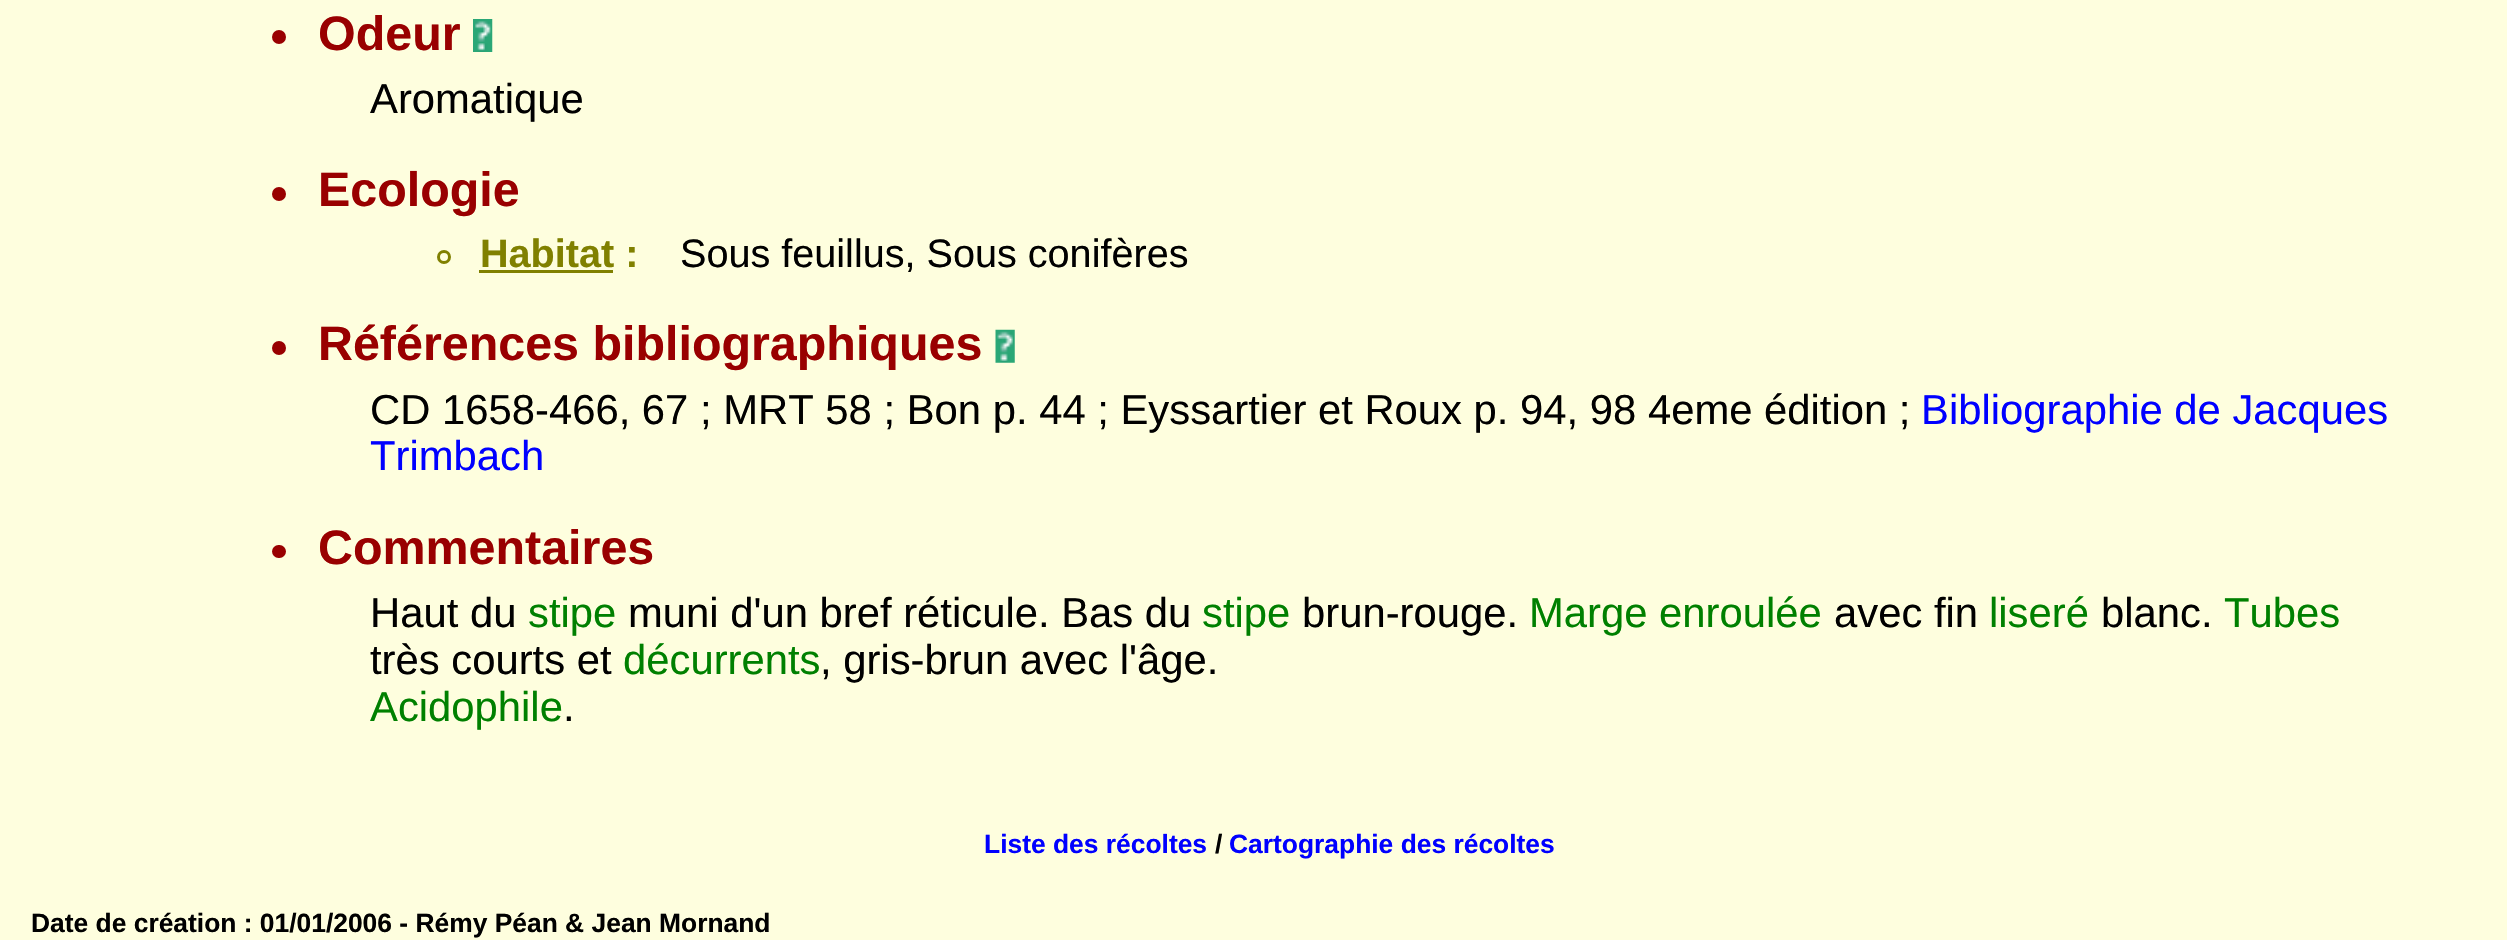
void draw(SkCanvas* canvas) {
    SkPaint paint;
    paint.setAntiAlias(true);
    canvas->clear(0xFFFEFEDE);
    paint.setColor(0xFF990000);
    canvas->drawCircle(279, 37, 7, paint);
    SkFont font1(fontMgr->matchFamilyStyle("Liberation Sans", SkFontStyle::Bold()), 48.4f);
    font1.setSubpixel(true);
    canvas->drawString("Odeur", 318, 50, font1, paint);
    canvas->drawImageRect(SkImages::DeferredFromEncodedData(SkData::MakeFromFileName("img1.png")), SkRect::MakeXYWH(473, 19, 20, 33), SkSamplingOptions());
    SkFont font2(fontMgr->matchFamilyStyle("Liberation Sans", SkFontStyle::Normal()), 41.8f);
    font2.setSubpixel(true);
    paint.setColor(0xFF000000);
    canvas->drawString("Aromatique", 370, 113, font2, paint);
    paint.setColor(0xFF990000);
    canvas->drawCircle(279, 194, 7, paint);
    canvas->drawString("Ecologie", 318, 206, font1, paint);
    paint.setStyle(SkPaint::kStroke_Style);
    paint.setStrokeWidth(3);
    paint.setColor(0xFF808000);
    canvas->drawCircle(444, 257, 5.5f, paint);
    SkFont font3(fontMgr->matchFamilyStyle("Liberation Sans", SkFontStyle::Bold()), 39.6f);
    font3.setSubpixel(true);
    paint.setStyle(SkPaint::kFill_Style);
    canvas->drawString("Habitat :", 480, 267, font3, paint);
    canvas->drawRect(SkRect::MakeXYWH(479, 270, 134, 3), paint);
    SkFont font4(fontMgr->matchFamilyStyle("Liberation Sans", SkFontStyle::Normal()), 39.6f);
    font4.setSubpixel(true);
    paint.setColor(0xFF000000);
    canvas->drawString("Sous feuillus, Sous conifères", 680, 267, font4, paint);
    paint.setColor(0xFF990000);
    canvas->drawCircle(279, 348, 7, paint);
    canvas->drawString("Références bibliographiques", 318, 360, font1, paint);
    canvas->drawImageRect(SkImages::DeferredFromEncodedData(SkData::MakeFromFileName("img2.png")), SkRect::MakeXYWH(995, 329, 20, 34), SkSamplingOptions());
    paint.setColor(0xFF000000);
    canvas->drawString("CD 1658-466, 67 ; MRT 58 ; Bon p. 44 ; Eyssartier et Roux p. 94, 98 4eme édition ;", 370, 424, font2, paint);
    paint.setColor(0xFF0000FF);
    canvas->drawString("Bibliographie de Jacques", 1921, 424, font2, paint);
    canvas->drawString("Trimbach", 370, 470, font2, paint);
    paint.setColor(0xFF990000);
    canvas->drawRoundRect(SkRect::MakeXYWH(272, 545, 14, 13), 6.5f, 6.5f, paint);
    canvas->drawString("Commentaires", 318, 564, font1, paint);
    paint.setColor(0xFF000000);
    canvas->drawString("Haut du", 370, 627, font2, paint);
    paint.setColor(0xFF008000);
    canvas->drawString("stipe", 528, 627, font2, paint);
    paint.setColor(0xFF000000);
    canvas->drawString("muni d'un bref réticule. Bas du", 628, 627, font2, paint);
    paint.setColor(0xFF008000);
    canvas->drawString("stipe", 1202, 627, font2, paint);
    paint.setColor(0xFF000000);
    canvas->drawString("brun-rouge.", 1302, 627, font2, paint);
    paint.setColor(0xFF008000);
    canvas->drawString("Marge enroulée", 1529, 627, font2, paint);
    paint.setColor(0xFF000000);
    canvas->drawString("avec fin", 1834, 627, font2, paint);
    paint.setColor(0xFF008000);
    canvas->drawString("liseré", 1989, 627, font2, paint);
    paint.setColor(0xFF000000);
    canvas->drawString("blanc.", 2101, 627, font2, paint);
    paint.setColor(0xFF008000);
    canvas->drawString("Tubes", 2224, 627, font2, paint);
    paint.setColor(0xFF000000);
    canvas->drawString("très courts et", 370, 674, font2, paint);
    paint.setColor(0xFF008000);
    canvas->drawString("décurrents", 623, 674, font2, paint);
    paint.setColor(0xFF000000);
    canvas->drawString(", gris-brun avec l'âge.", 820, 674, font2, paint);
    paint.setColor(0xFF008000);
    canvas->drawString("Acidophile", 370, 721, font2, paint);
    paint.setColor(0xFF000000);
    canvas->drawString(".", 563, 721, font2, paint);
    SkFont font5(fontMgr->matchFamilyStyle("Liberation Sans", SkFontStyle::Bold()), 26.4f);
    font5.setSubpixel(true);
    paint.setColor(0xFF0000FF);
    canvas->drawString("Liste des récoltes", 984, 853, font5, paint);
    paint.setColor(0xFF000000);
    canvas->drawString("/", 1215, 853, font5, paint);
    paint.setColor(0xFF0000FF);
    canvas->drawString("Cartographie des récoltes", 1229, 853, font5, paint);
    paint.setColor(0xFF000000);
    canvas->drawString("Date de création : 01/01/2006 - Rémy Péan & Jean Mornand", 31, 932, font5, paint);
}
